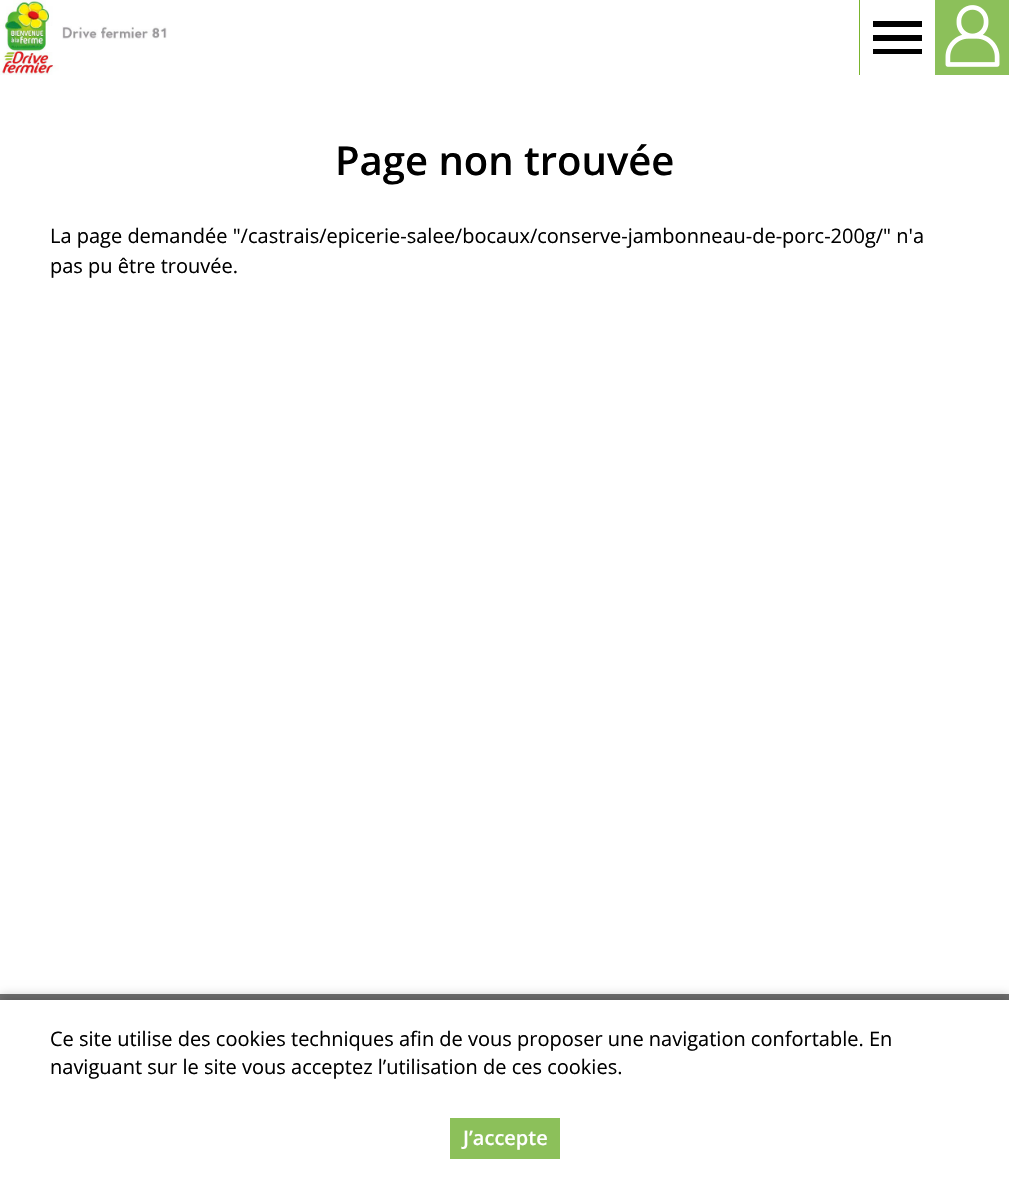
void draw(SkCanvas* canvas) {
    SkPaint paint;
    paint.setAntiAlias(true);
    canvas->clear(0xFFFFFFFF);
    canvas->drawImageRect(SkImages::DeferredFromEncodedData(SkData::MakeFromFileName("img1.png")), SkRect::MakeXYWH(0, 0, 167, 75), SkSamplingOptions());
    paint.setColor(0xFF79B42D);
    canvas->drawRect(SkRect::MakeXYWH(859, 0, 1, 75), paint);
    canvas->save();
    canvas->clipRect(SkRect::MakeXYWH(873, 21, 50, 33));
    paint.setColor(0xFF000000);
    canvas->drawPath(SkPathBuilder(SkPathFillType::kEvenOdd).moveTo(873, 55).lineTo(922, 55).lineTo(922, 49).lineTo(873, 49).close().moveTo(873, 41).lineTo(922, 41).lineTo(922, 35).lineTo(873, 35).close().moveTo(873, 21).lineTo(873, 27).lineTo(922, 27).lineTo(922, 21).close().detach(), paint);
    canvas->restore();
    paint.setColor(0xFF8CC05A);
    canvas->drawRect(SkRect::MakeXYWH(935, 0, 74, 75), paint);
    canvas->drawImageRect(SkImages::DeferredFromEncodedData(SkData::MakeFromFileName("img2.png")), SkRect::MakeXYWH(945, 5, 55, 62), SkSamplingOptions());
    SkFont font1(fontMgr->matchFamilyStyle("Open Sans", SkFontStyle(600, SkFontStyle::kNormal_Width, SkFontStyle::kUpright_Slant)), 40);
    font1.setSubpixel(true);
    paint.setColor(0xFF000000);
    canvas->drawString("Page non trouvée", 335, 175, font1, paint);
    SkFont font2(fontMgr->matchFamilyStyle("Open Sans", SkFontStyle::Normal()), 20);
    font2.setSubpixel(true);
    canvas->drawString("La page demandée \"/castrais/epicerie-salee/bocaux/conserve-jambonneau-de-porc-200g/\" n'a", 50, 243, font2, paint);
    canvas->drawString("pas pu être trouvée.", 50, 273, font2, paint);
    paint.setColor(0xFF737373);
    canvas->drawRect(SkRect::MakeXYWH(0, 994, 1009, 6), paint);
    paint.setColor(0x33000000);
    paint.setMaskFilter(SkMaskFilter::MakeBlur(kNormal_SkBlurStyle, 5));
    canvas->drawRect(SkRect::MakeXYWH(0, 995, 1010, 184), paint);
    paint.setMaskFilter(nullptr);
    paint.setColor(0xFFFFFFFF);
    canvas->drawRect(SkRect::MakeXYWH(0, 1000, 1009, 183), paint);
    paint.setColor(0xFF000000);
    canvas->drawString("Ce site utilise des cookies techniques afin de vous proposer une navigation confortable. En", 50, 1046, font2, paint);
    canvas->drawString("naviguant sur le site vous acceptez l’utilisation de ces cookies.", 50, 1074, font2, paint);
    paint.setColor(0xFF8CC05A);
    canvas->drawRect(SkRect::MakeXYWH(450, 1118, 110, 41), paint);
    SkFont font3(fontMgr->matchFamilyStyle("Open Sans", SkFontStyle(600, SkFontStyle::kNormal_Width, SkFontStyle::kUpright_Slant)), 20);
    font3.setSubpixel(true);
    paint.setColor(0xFFFFFFFF);
    canvas->drawString("J’accepte", 463, 1145, font3, paint);
}
